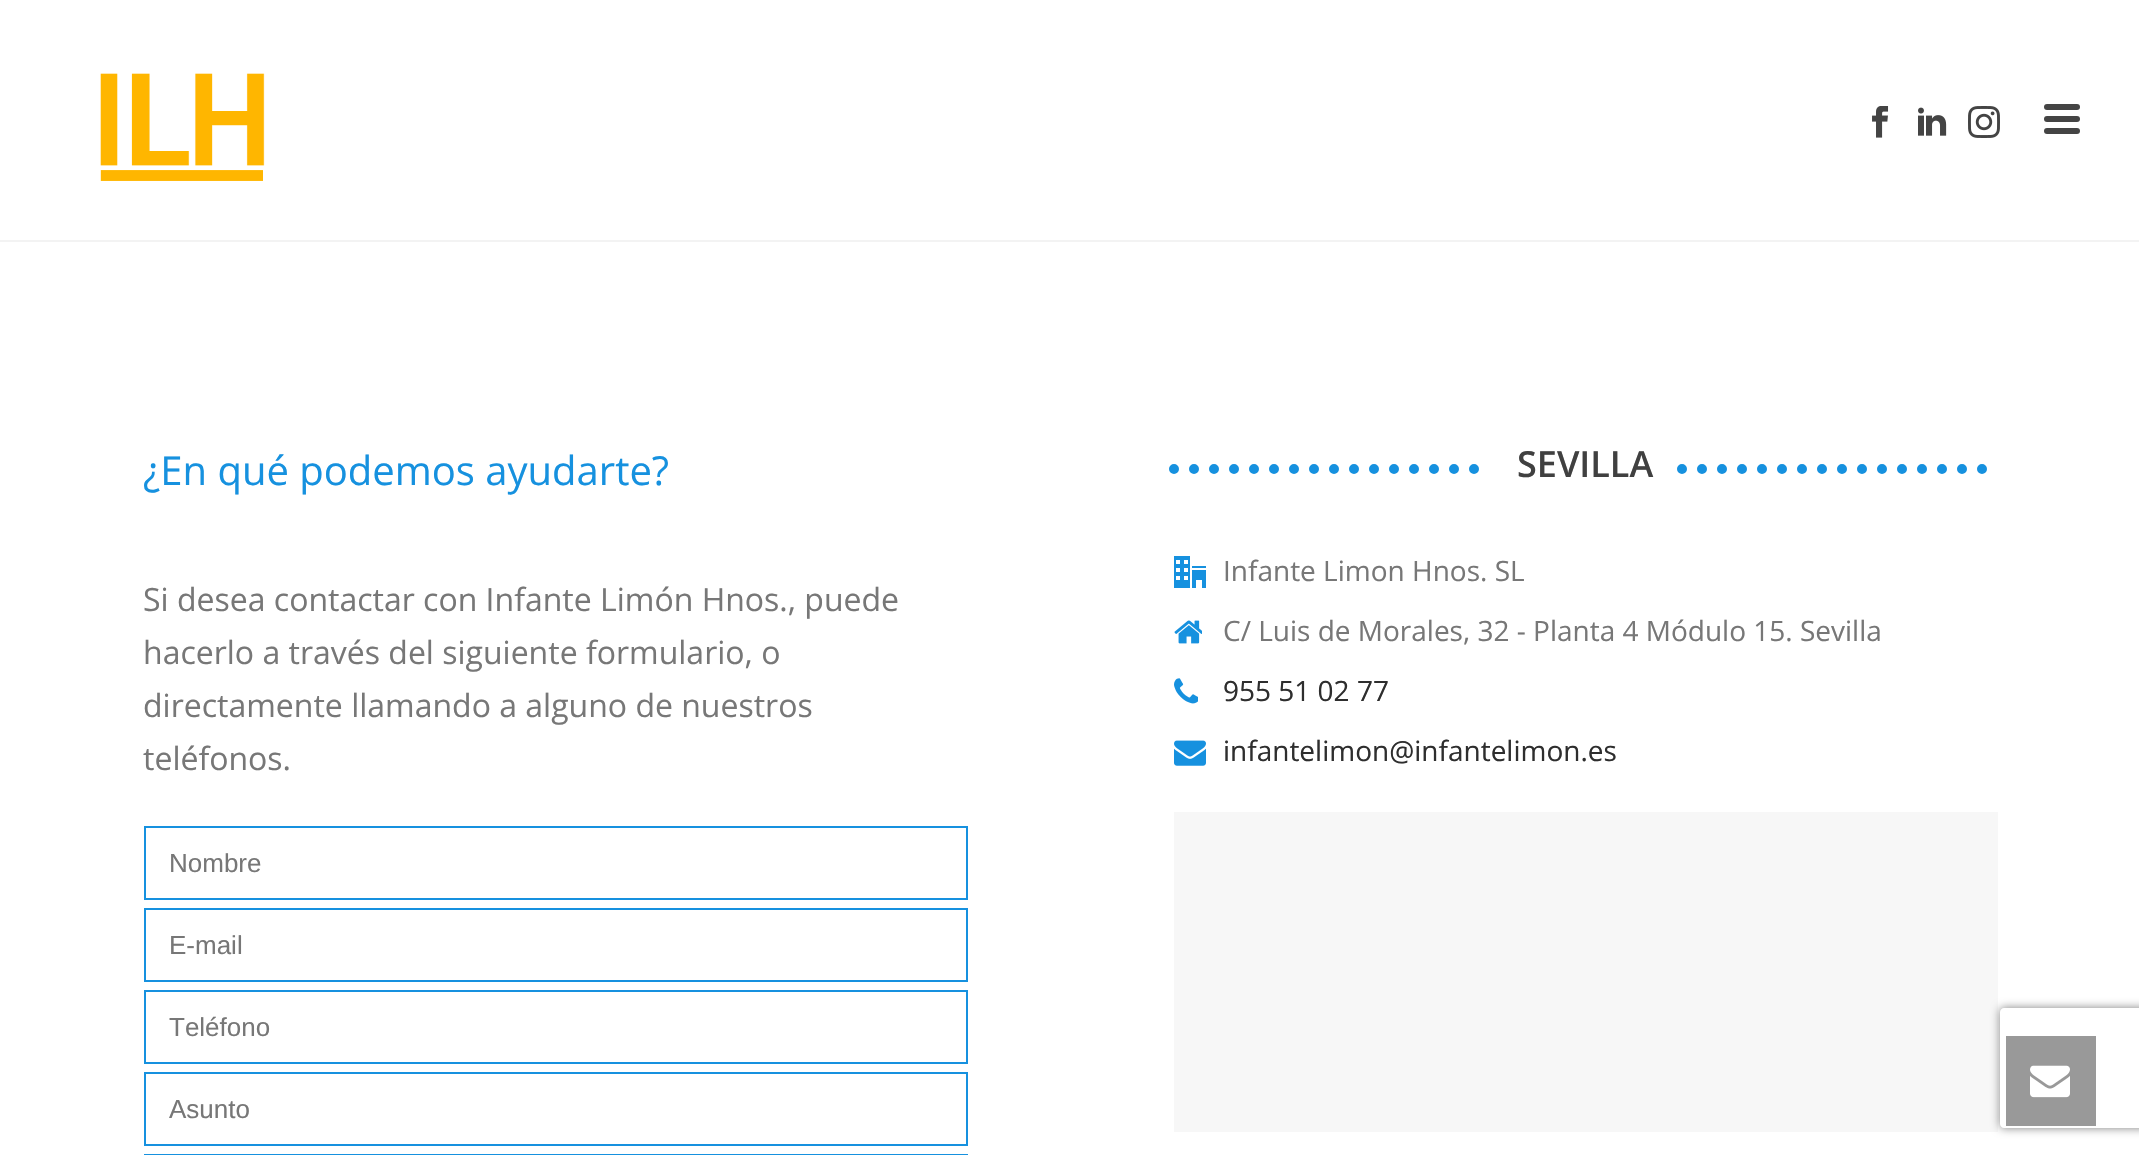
void draw(SkCanvas* canvas) {
    SkPaint paint;
    paint.setAntiAlias(true);
    canvas->clear(0xFFFFFFFF);
    paint.setColor(0xFFF3F3F3);
    canvas->drawRect(SkRect::MakeXYWH(0, 240, 2139, 2), paint);
    canvas->drawImageRect(SkImages::DeferredFromEncodedData(SkData::MakeFromFileName("img1.png")), SkRect::MakeXYWH(100, 73, 165, 108), SkSamplingOptions());
    paint.setColor(0xFF444444);
    canvas->drawRoundRect(SkRect::MakeXYWH(2044, 104, 36, 6), 3, 3, paint);
    canvas->drawRoundRect(SkRect::MakeXYWH(2044, 116, 36, 6), 3, 3, paint);
    canvas->drawRoundRect(SkRect::MakeXYWH(2044, 128, 36, 6), 3, 3, paint);
    canvas->drawImageRect(SkImages::DeferredFromEncodedData(SkData::MakeFromFileName("img2.png")), SkRect::MakeXYWH(1872, 106, 17, 32), SkSamplingOptions());
    canvas->drawImageRect(SkImages::DeferredFromEncodedData(SkData::MakeFromFileName("img3.png")), SkRect::MakeXYWH(1918, 107, 29, 29), SkSamplingOptions());
    canvas->drawImageRect(SkImages::DeferredFromEncodedData(SkData::MakeFromFileName("img4.png")), SkRect::MakeXYWH(1968, 106, 32, 32), SkSamplingOptions());
    SkFont font1(fontMgr->matchFamilyStyle("Open Sans", SkFontStyle::Normal()), 40);
    font1.setSubpixel(true);
    paint.setColor(0xFF1691DF);
    canvas->drawString("¿En qué podemos ayudarte?", 143, 485, font1, paint);
    SkFont font2(fontMgr->matchFamilyStyle("Open Sans", SkFontStyle::Normal()), 32);
    font2.setSubpixel(true);
    paint.setColor(0xFF777777);
    canvas->drawString("Si desea contactar con Infante Limón Hnos., puede", 143, 611, font2, paint);
    canvas->drawString("hacerlo a través del siguiente formulario, o", 143, 664, font2, paint);
    canvas->drawString("directamente llamando a alguno de nuestros", 143, 717, font2, paint);
    canvas->drawString("teléfonos.", 143, 770, font2, paint);
    paint.setStyle(SkPaint::kStroke_Style);
    paint.setStrokeWidth(2);
    paint.setColor(0xFF1691DF);
    canvas->drawRect(SkRect::MakeXYWH(145, 827, 822, 72), paint);
    SkFont font3(fontMgr->matchFamilyStyle("Liberation Sans", SkFontStyle::Normal()), 26);
    font3.setSubpixel(true);
    paint.setStyle(SkPaint::kFill_Style);
    paint.setColor(0xFF777777);
    canvas->drawString("Nombre", 169, 872, font3, paint);
    paint.setStyle(SkPaint::kStroke_Style);
    paint.setColor(0xFF1691DF);
    canvas->drawRect(SkRect::MakeXYWH(145, 909, 822, 72), paint);
    paint.setStyle(SkPaint::kFill_Style);
    paint.setColor(0xFF777777);
    canvas->drawString("E-mail", 169, 954, font3, paint);
    paint.setStyle(SkPaint::kStroke_Style);
    paint.setColor(0xFF1691DF);
    canvas->drawRect(SkRect::MakeXYWH(145, 991, 822, 72), paint);
    paint.setStyle(SkPaint::kFill_Style);
    paint.setColor(0xFF777777);
    canvas->drawString("Teléfono", 169, 1036, font3, paint);
    paint.setStyle(SkPaint::kStroke_Style);
    paint.setColor(0xFF1691DF);
    canvas->drawRect(SkRect::MakeXYWH(145, 1073, 822, 72), paint);
    paint.setStyle(SkPaint::kFill_Style);
    paint.setColor(0xFF777777);
    canvas->drawString("Asunto", 169, 1118, font3, paint);
    paint.setStyle(SkPaint::kStroke_Style);
    paint.setColor(0xFF1691DF);
    canvas->drawRect(SkRect::MakeXYWH(145, 1155, 822, 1), paint);
    paint.setStrokeWidth(10);
    paint.setStrokeCap(SkPaint::kRound_Cap);
    paint.setPathEffect(SkDashPathEffect::Make({{0, 20}}, 0));
    canvas->drawPath(SkPathBuilder().moveTo(1174, 469).lineTo(1488, 469).detach(), paint);
    paint.setPathEffect(nullptr);
    SkFont font4(fontMgr->matchFamilyStyle("Open Sans", SkFontStyle(600, SkFontStyle::kNormal_Width, SkFontStyle::kUpright_Slant)), 36);
    font4.setSubpixel(true);
    paint.setStyle(SkPaint::kFill_Style);
    paint.setColor(0xFF404040);
    canvas->drawString("SEVILLA", 1517, 477, font4, paint);
    paint.setStyle(SkPaint::kStroke_Style);
    paint.setColor(0xFF1691DF);
    paint.setPathEffect(SkDashPathEffect::Make({{0, 20}}, 0));
    canvas->drawPath(SkPathBuilder().moveTo(1682, 469).lineTo(1998, 469).detach(), paint);
    paint.setPathEffect(nullptr);
    canvas->drawImageRect(SkImages::DeferredFromEncodedData(SkData::MakeFromFileName("img5.png")), SkRect::MakeXYWH(1174, 556, 32, 32), SkSamplingOptions());
    SkFont font5(fontMgr->matchFamilyStyle("Open Sans", SkFontStyle::Normal()), 28);
    font5.setSubpixel(true);
    paint.setStyle(SkPaint::kFill_Style);
    paint.setColor(0xFF777777);
    canvas->drawString("Infante Limon Hnos. SL", 1223, 581, font5, paint);
    canvas->drawImageRect(SkImages::DeferredFromEncodedData(SkData::MakeFromFileName("img6.png")), SkRect::MakeXYWH(1174, 620, 28, 24), SkSamplingOptions());
    canvas->drawString("C/ Luis de Morales, 32 - Planta 4 Módulo 15. Sevilla", 1223, 641, font5, paint);
    canvas->drawImageRect(SkImages::DeferredFromEncodedData(SkData::MakeFromFileName("img7.png")), SkRect::MakeXYWH(1174, 678, 24, 26), SkSamplingOptions());
    paint.setColor(0xFF2E2E2E);
    canvas->drawString("955 51 02 77", 1223, 701, font5, paint);
    canvas->drawImageRect(SkImages::DeferredFromEncodedData(SkData::MakeFromFileName("img8.png")), SkRect::MakeXYWH(1174, 740, 32, 26), SkSamplingOptions());
    canvas->drawString("infantelimon@infantelimon.es", 1223, 761, font5, paint);
    paint.setColor(0xFFF7F7F7);
    canvas->drawRect(SkRect::MakeXYWH(1174, 812, 824, 320), paint);
    canvas->save();
    canvas->clipPath(SkPathBuilder(SkPathFillType::kEvenOdd).moveTo(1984, 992).lineTo(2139, 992).lineTo(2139, 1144).lineTo(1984, 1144).close().moveTo(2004, 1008).lineTo(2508, 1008).cubicTo(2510, 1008, 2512, 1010, 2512, 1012).lineTo(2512, 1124).cubicTo(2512, 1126, 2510, 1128, 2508, 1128).lineTo(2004, 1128).cubicTo(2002, 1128, 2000, 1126, 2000, 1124).lineTo(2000, 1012).cubicTo(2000, 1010, 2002, 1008, 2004, 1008).close().detach(), true);
    paint.setColor(0xFF808080);
    paint.setMaskFilter(SkMaskFilter::MakeBlur(kNormal_SkBlurStyle, 5));
    canvas->drawRoundRect(SkRect::MakeXYWH(2000, 1008, 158, 120), 4, 4, paint);
    paint.setMaskFilter(nullptr);
    canvas->restore();
    paint.setColor(0xFF999999);
    canvas->drawRect(SkRect::MakeXYWH(2006, 1036, 90, 90), paint);
    canvas->drawImageRect(SkImages::DeferredFromEncodedData(SkData::MakeFromFileName("img9.png")), SkRect::MakeXYWH(2030, 1065, 40, 33), SkSamplingOptions());
}
